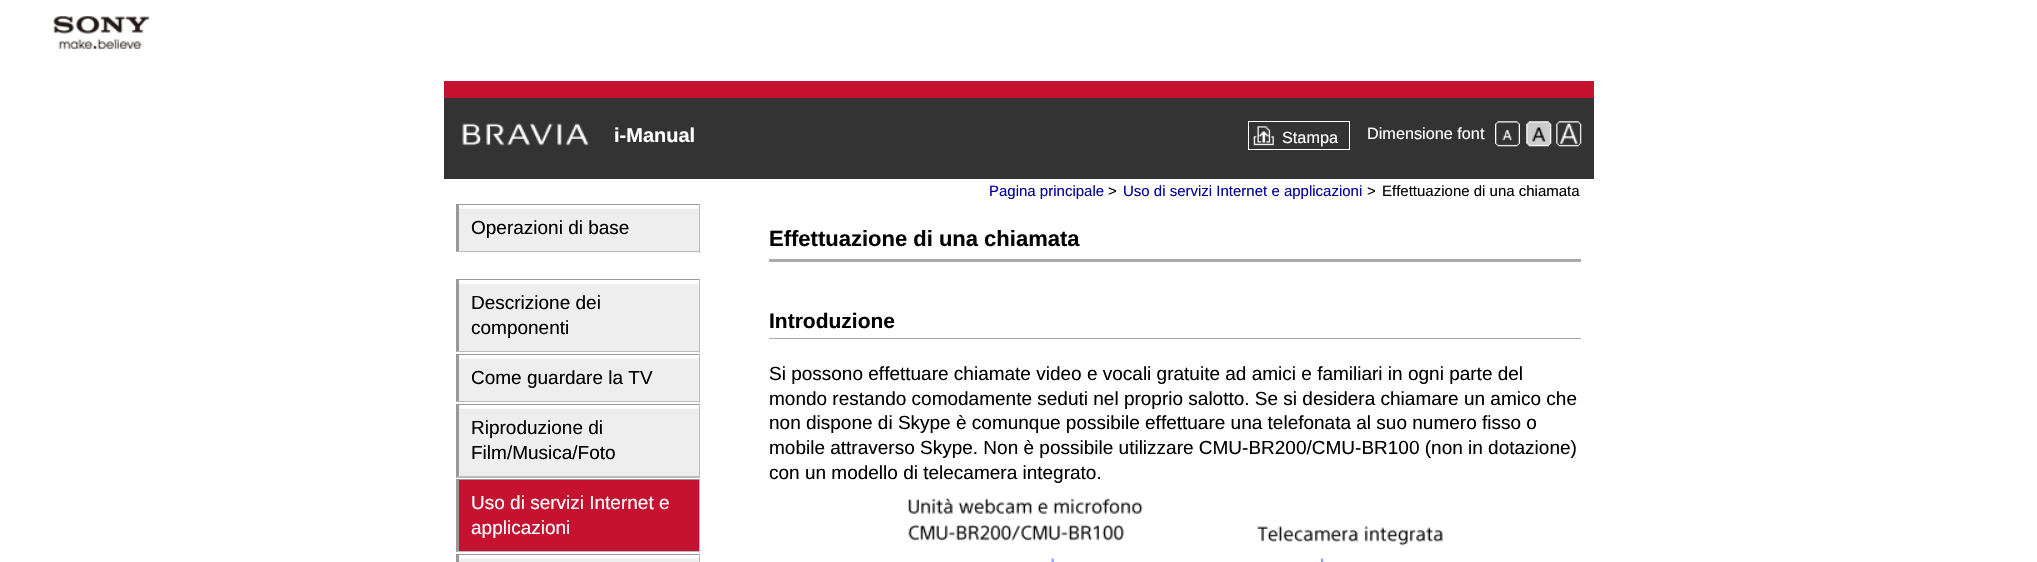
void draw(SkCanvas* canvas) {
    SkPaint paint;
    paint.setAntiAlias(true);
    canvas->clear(0xFFFFFFFF);
    canvas->drawImageRect(SkImages::DeferredFromEncodedData(SkData::MakeFromFileName("img1.png")), SkRect::MakeXYWH(53, 16, 96, 33), SkSamplingOptions());
    paint.setColor(0xFF333333);
    canvas->drawRect(SkRect::MakeXYWH(444, 98, 1150, 81), paint);
    paint.setColor(0xFFC41230);
    canvas->drawRect(SkRect::MakeXYWH(444, 81, 1150, 17), paint);
    canvas->drawImageRect(SkImages::DeferredFromEncodedData(SkData::MakeFromFileName("img2.png")), SkRect::MakeXYWH(462, 123, 127, 23), SkSamplingOptions());
    SkFont font1(fontMgr->matchFamilyStyle("Liberation Sans", SkFontStyle::Bold()), 20);
    font1.setSubpixel(true);
    paint.setColor(0xFFFFFFFF);
    canvas->drawString("i-Manual", 614, 142, font1, paint);
    canvas->drawImageRect(SkImages::DeferredFromEncodedData(SkData::MakeFromFileName("img3.png")), SkRect::MakeXYWH(1253, 126, 21, 20), SkSamplingOptions());
    paint.setStyle(SkPaint::kStroke_Style);
    paint.setStrokeWidth(1);
    canvas->drawRect(SkRect::MakeXYWH(1248.5f, 121.5f, 101, 28), paint);
    SkFont font2(fontMgr->matchFamilyStyle("Liberation Sans", SkFontStyle::Normal()), 16.25f);
    font2.setSubpixel(true);
    paint.setStyle(SkPaint::kFill_Style);
    canvas->drawString("Stampa", 1282, 143, font2, paint);
    canvas->drawString("Dimensione font", 1367, 139, font2, paint);
    canvas->drawImageRect(SkImages::DeferredFromEncodedData(SkData::MakeFromFileName("img4.png")), SkRect::MakeXYWH(1495, 121, 25, 26), SkSamplingOptions());
    canvas->drawImageRect(SkImages::DeferredFromEncodedData(SkData::MakeFromFileName("img5.png")), SkRect::MakeXYWH(1526, 121, 26, 26), SkSamplingOptions());
    canvas->drawImageRect(SkImages::DeferredFromEncodedData(SkData::MakeFromFileName("img6.png")), SkRect::MakeXYWH(1556, 121, 26, 26), SkSamplingOptions());
    paint.setColor(0xFFEEEEEE);
    canvas->drawRect(SkRect::MakeXYWH(459, 210, 240, 41), paint);
    canvas->drawImageRect(SkImages::DeferredFromEncodedData(SkData::MakeFromFileName("img7.png")), SkRect::MakeXYWH(459, 205, 240, 5), SkSamplingOptions());
    paint.setColor(0xFF999999);
    canvas->drawRect(SkRect::MakeXYWH(456, 204, 244, 1), paint);
    paint.setColor(0xFFBBBBBB);
    canvas->drawRect(SkRect::MakeXYWH(699, 204, 1, 49), paint);
    canvas->drawPath(SkPathBuilder().moveTo(700, 252).lineTo(456, 252).lineTo(459, 251).lineTo(699, 251).close().detach(), paint);
    paint.setColor(0xFF999999);
    canvas->drawPath(SkPathBuilder().moveTo(456, 252).lineTo(456, 204).lineTo(459, 205).lineTo(459, 251).close().detach(), paint);
    SkFont font3(fontMgr->matchFamilyStyle("Liberation Sans", SkFontStyle::Normal()), 19);
    font3.setSubpixel(true);
    paint.setColor(0xFF000000);
    canvas->drawString("Operazioni di base", 471, 234, font3, paint);
    paint.setColor(0xFFEEEEEE);
    canvas->drawRect(SkRect::MakeXYWH(459, 285, 240, 66), paint);
    canvas->drawImageRect(SkImages::DeferredFromEncodedData(SkData::MakeFromFileName("img7.png")), SkRect::MakeXYWH(459, 280, 240, 5), SkSamplingOptions());
    paint.setColor(0xFF999999);
    canvas->drawRect(SkRect::MakeXYWH(456, 279, 244, 1), paint);
    paint.setColor(0xFFBBBBBB);
    canvas->drawRect(SkRect::MakeXYWH(699, 279, 1, 74), paint);
    canvas->drawPath(SkPathBuilder().moveTo(700, 352).lineTo(456, 352).lineTo(459, 351).lineTo(699, 351).close().detach(), paint);
    paint.setColor(0xFF999999);
    canvas->drawPath(SkPathBuilder().moveTo(456, 352).lineTo(456, 279).lineTo(459, 280).lineTo(459, 351).close().detach(), paint);
    paint.setColor(0xFF000000);
    canvas->drawString("Descrizione dei", 471, 309, font3, paint);
    canvas->drawString("componenti", 471, 334, font3, paint);
    paint.setColor(0xFFEEEEEE);
    canvas->drawRect(SkRect::MakeXYWH(459, 360, 240, 41), paint);
    canvas->drawImageRect(SkImages::DeferredFromEncodedData(SkData::MakeFromFileName("img7.png")), SkRect::MakeXYWH(459, 355, 240, 5), SkSamplingOptions());
    paint.setColor(0xFF999999);
    canvas->drawRect(SkRect::MakeXYWH(456, 354, 244, 1), paint);
    paint.setColor(0xFFBBBBBB);
    canvas->drawRect(SkRect::MakeXYWH(699, 354, 1, 49), paint);
    canvas->drawPath(SkPathBuilder().moveTo(700, 402).lineTo(456, 402).lineTo(459, 401).lineTo(699, 401).close().detach(), paint);
    paint.setColor(0xFF999999);
    canvas->drawPath(SkPathBuilder().moveTo(456, 402).lineTo(456, 354).lineTo(459, 355).lineTo(459, 401).close().detach(), paint);
    paint.setColor(0xFF000000);
    canvas->drawString("Come guardare la TV", 471, 384, font3, paint);
    paint.setColor(0xFFEEEEEE);
    canvas->drawRect(SkRect::MakeXYWH(459, 410, 240, 66), paint);
    canvas->drawImageRect(SkImages::DeferredFromEncodedData(SkData::MakeFromFileName("img7.png")), SkRect::MakeXYWH(459, 405, 240, 5), SkSamplingOptions());
    paint.setColor(0xFF999999);
    canvas->drawRect(SkRect::MakeXYWH(456, 404, 244, 1), paint);
    paint.setColor(0xFFBBBBBB);
    canvas->drawRect(SkRect::MakeXYWH(699, 404, 1, 74), paint);
    canvas->drawPath(SkPathBuilder().moveTo(700, 478).lineTo(456, 478).lineTo(459, 476).lineTo(699, 476).close().detach(), paint);
    paint.setColor(0xFF999999);
    canvas->drawPath(SkPathBuilder().moveTo(456, 478).lineTo(456, 404).lineTo(459, 405).lineTo(459, 476).close().detach(), paint);
    paint.setColor(0xFF000000);
    canvas->drawString("Riproduzione di", 471, 434, font3, paint);
    canvas->drawString("Film/Musica/Foto", 471, 459, font3, paint);
    paint.setColor(0xFF999999);
    canvas->drawRect(SkRect::MakeXYWH(456, 479, 244, 1), paint);
    paint.setColor(0xFFBBBBBB);
    canvas->drawRect(SkRect::MakeXYWH(699, 479, 1, 74), paint);
    canvas->drawPath(SkPathBuilder().moveTo(700, 552).lineTo(456, 552).lineTo(459, 551).lineTo(699, 551).close().detach(), paint);
    paint.setColor(0xFF999999);
    canvas->drawPath(SkPathBuilder().moveTo(456, 552).lineTo(456, 479).lineTo(459, 480).lineTo(459, 551).close().detach(), paint);
    paint.setColor(0xFFC41230);
    canvas->drawRect(SkRect::MakeXYWH(459, 480, 240, 71), paint);
    paint.setColor(0xFFFFFFFF);
    canvas->drawString("Uso di servizi Internet e", 471, 509, font3, paint);
    canvas->drawString("applicazioni", 471, 534, font3, paint);
    paint.setColor(0xFFEEEEEE);
    canvas->drawRect(SkRect::MakeXYWH(459, 560, 240, 2), paint);
    canvas->drawImageRect(SkImages::DeferredFromEncodedData(SkData::MakeFromFileName("img7.png")), SkRect::MakeXYWH(459, 555, 240, 5), SkSamplingOptions());
    paint.setColor(0xFF999999);
    canvas->drawRect(SkRect::MakeXYWH(456, 554, 244, 1), paint);
    paint.setColor(0xFFBBBBBB);
    canvas->drawRect(SkRect::MakeXYWH(699, 554, 1, 8), paint);
    paint.setColor(0xFF999999);
    canvas->drawPath(SkPathBuilder().moveTo(456, 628).lineTo(456, 554).lineTo(459, 555).lineTo(459, 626).close().detach(), paint);
    SkFont font4(fontMgr->matchFamilyStyle("Liberation Sans", SkFontStyle::Normal()), 15);
    font4.setSubpixel(true);
    paint.setColor(0xFF000099);
    canvas->drawString("Pagina principale", 989, 196, font4, paint);
    paint.setColor(0xFF000000);
    canvas->drawString(">", 1108, 196, font4, paint);
    paint.setColor(0xFF000099);
    canvas->drawString("Uso di servizi Internet e applicazioni", 1123, 196, font4, paint);
    paint.setColor(0xFF000000);
    canvas->drawString(">", 1367, 196, font4, paint);
    canvas->drawString("Effettuazione di una chiamata", 1382, 196, font4, paint);
    paint.setColor(0xFFAAAAAA);
    canvas->drawRect(SkRect::MakeXYWH(769, 259, 812, 3), paint);
    SkFont font5(fontMgr->matchFamilyStyle("Liberation Sans", SkFontStyle::Bold()), 22);
    font5.setSubpixel(true);
    paint.setColor(0xFF000000);
    canvas->drawString("Effettuazione di una chiamata", 769, 246, font5, paint);
    paint.setColor(0xFFAAAAAA);
    canvas->drawRect(SkRect::MakeXYWH(769, 338, 812, 1), paint);
    SkFont font6(fontMgr->matchFamilyStyle("Liberation Sans", SkFontStyle::Bold()), 21);
    font6.setSubpixel(true);
    paint.setColor(0xFF000000);
    canvas->drawString("Introduzione", 769, 328, font6, paint);
    canvas->drawString("Si possono effettuare chiamate video e vocali gratuite ad amici e familiari in ogni parte del", 769, 380, font3, paint);
    canvas->drawString("mondo restando comodamente seduti nel proprio salotto. Se si desidera chiamare un amico che", 769, 405, font3, paint);
    canvas->drawString("non dispone di Skype è comunque possibile effettuare una telefonata al suo numero fisso o", 769, 429, font3, paint);
    canvas->drawString("mobile attraverso Skype. Non è possibile utilizzare CMU-BR200/CMU-BR100 (non in dotazione)", 769, 454, font3, paint);
    canvas->drawString("con un modello di telecamera integrato.", 769, 479, font3, paint);
    canvas->drawImageRect(SkImages::DeferredFromEncodedData(SkData::MakeFromFileName("img8.png")), SkRect::MakeXYWH(908, 498, 535, 64), SkSamplingOptions());
}
